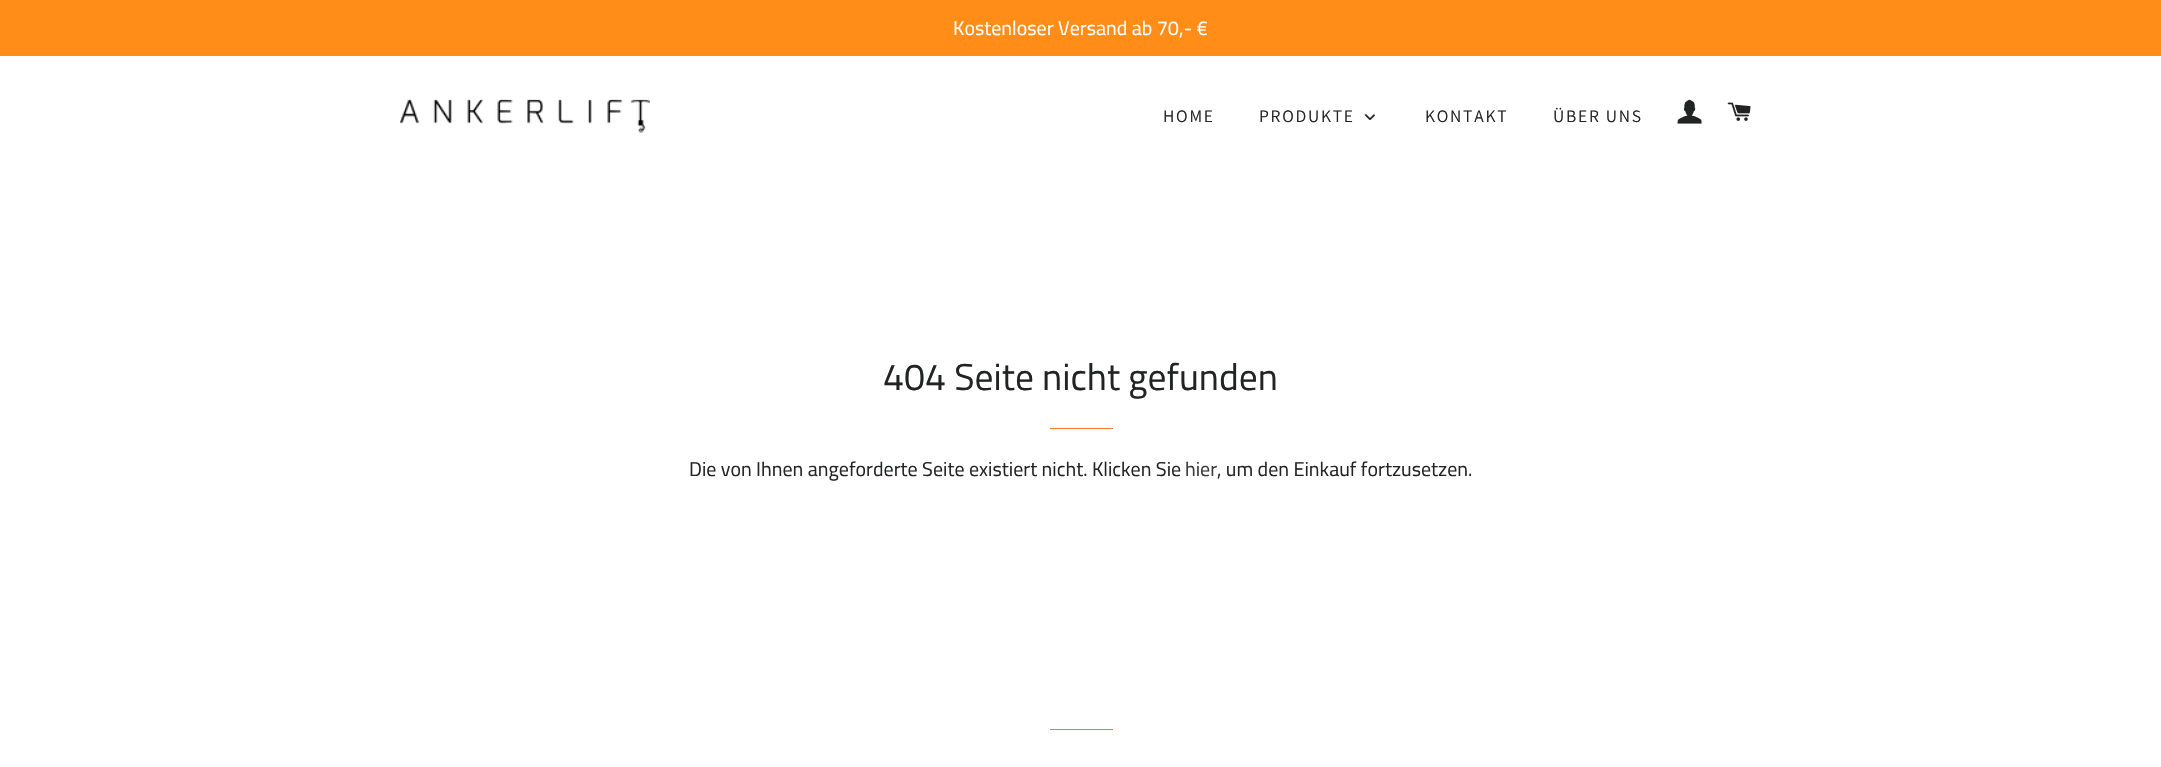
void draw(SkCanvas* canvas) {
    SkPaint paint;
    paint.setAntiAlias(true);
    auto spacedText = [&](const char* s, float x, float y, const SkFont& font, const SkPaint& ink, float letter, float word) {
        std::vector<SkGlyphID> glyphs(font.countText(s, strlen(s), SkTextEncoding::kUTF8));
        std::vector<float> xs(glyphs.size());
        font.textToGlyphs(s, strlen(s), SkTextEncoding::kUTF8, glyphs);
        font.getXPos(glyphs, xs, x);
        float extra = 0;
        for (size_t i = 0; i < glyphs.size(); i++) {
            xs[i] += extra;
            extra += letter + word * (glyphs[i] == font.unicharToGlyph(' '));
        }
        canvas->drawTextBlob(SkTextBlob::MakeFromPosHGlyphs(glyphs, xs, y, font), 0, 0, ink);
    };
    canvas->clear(0xFFFFFFFF);
    paint.setColor(0xFFFF8D17);
    canvas->drawRect(SkRect::MakeXYWH(0, 0, 2161, 56), paint);
    SkFont font1(fontMgr->matchFamilyStyle("Titillium Web", SkFontStyle::Normal()), 20);
    font1.setSubpixel(true);
    paint.setColor(0xFFFFFFFF);
    canvas->drawString("Kostenloser Versand ab 70,- €", 953, 35, font1, paint);
    canvas->drawImageRect(SkImages::DeferredFromEncodedData(SkData::MakeFromFileName("img1.png")), SkRect::MakeXYWH(400, 99, 250, 34), SkSamplingOptions());
    SkFont font2(fontMgr->matchFamilyStyle("Assistant", SkFontStyle::Normal()), 17.5f);
    font2.setSubpixel(true);
    paint.setColor(0xFF222323);
    spacedText("HOME", 1163, 122, font2, paint, 1.75f, 0);
    spacedText("PRODUKTE", 1259, 122, font2, paint, 1.75f, 0);
    canvas->drawPath(SkPathBuilder().moveTo(1374, 114).lineTo(1375, 115.5f).lineTo(1370.5f, 120).lineTo(1369, 119).close().detach(), paint);
    canvas->drawPath(SkPathBuilder().moveTo(1366, 114).lineTo(1371, 119).lineTo(1369.5f, 120).lineTo(1364.5f, 115).close().detach(), paint);
    spacedText("KONTAKT", 1425, 122, font2, paint, 1.75f, 0);
    spacedText("ÜBER UNS", 1553, 122, font2, paint, 1.75f, 0);
    canvas->drawImageRect(SkImages::DeferredFromEncodedData(SkData::MakeFromFileName("img2.png")), SkRect::MakeXYWH(1677, 99, 25, 25), SkSamplingOptions());
    canvas->drawImageRect(SkImages::DeferredFromEncodedData(SkData::MakeFromFileName("img3.png")), SkRect::MakeXYWH(1727, 102, 24, 19), SkSamplingOptions());
    SkFont font3(fontMgr->matchFamilyStyle("Titillium Web", SkFontStyle::Normal()), 37.5f);
    font3.setSubpixel(true);
    canvas->drawString("404 Seite nicht gefunden", 883, 390, font3, paint);
    paint.setColor(0xFFFF772C);
    canvas->drawRect(SkRect::MakeXYWH(1050, 428, 63, 1), paint);
    paint.setColor(0xFF222323);
    canvas->drawString("Die von Ihnen angeforderte Seite existiert nicht. Klicken Sie", 689, 476, font1, paint);
    paint.setColor(0xFF383838);
    canvas->drawString("hier", 1185, 476, font1, paint);
    paint.setColor(0xFF222323);
    canvas->drawString(", um den Einkauf fortzusetzen.", 1217, 476, font1, paint);
    paint.setColor(0xFFFF772C);
    canvas->drawRect(SkRect::MakeXYWH(1050, 729, 63, 1), paint);
}
